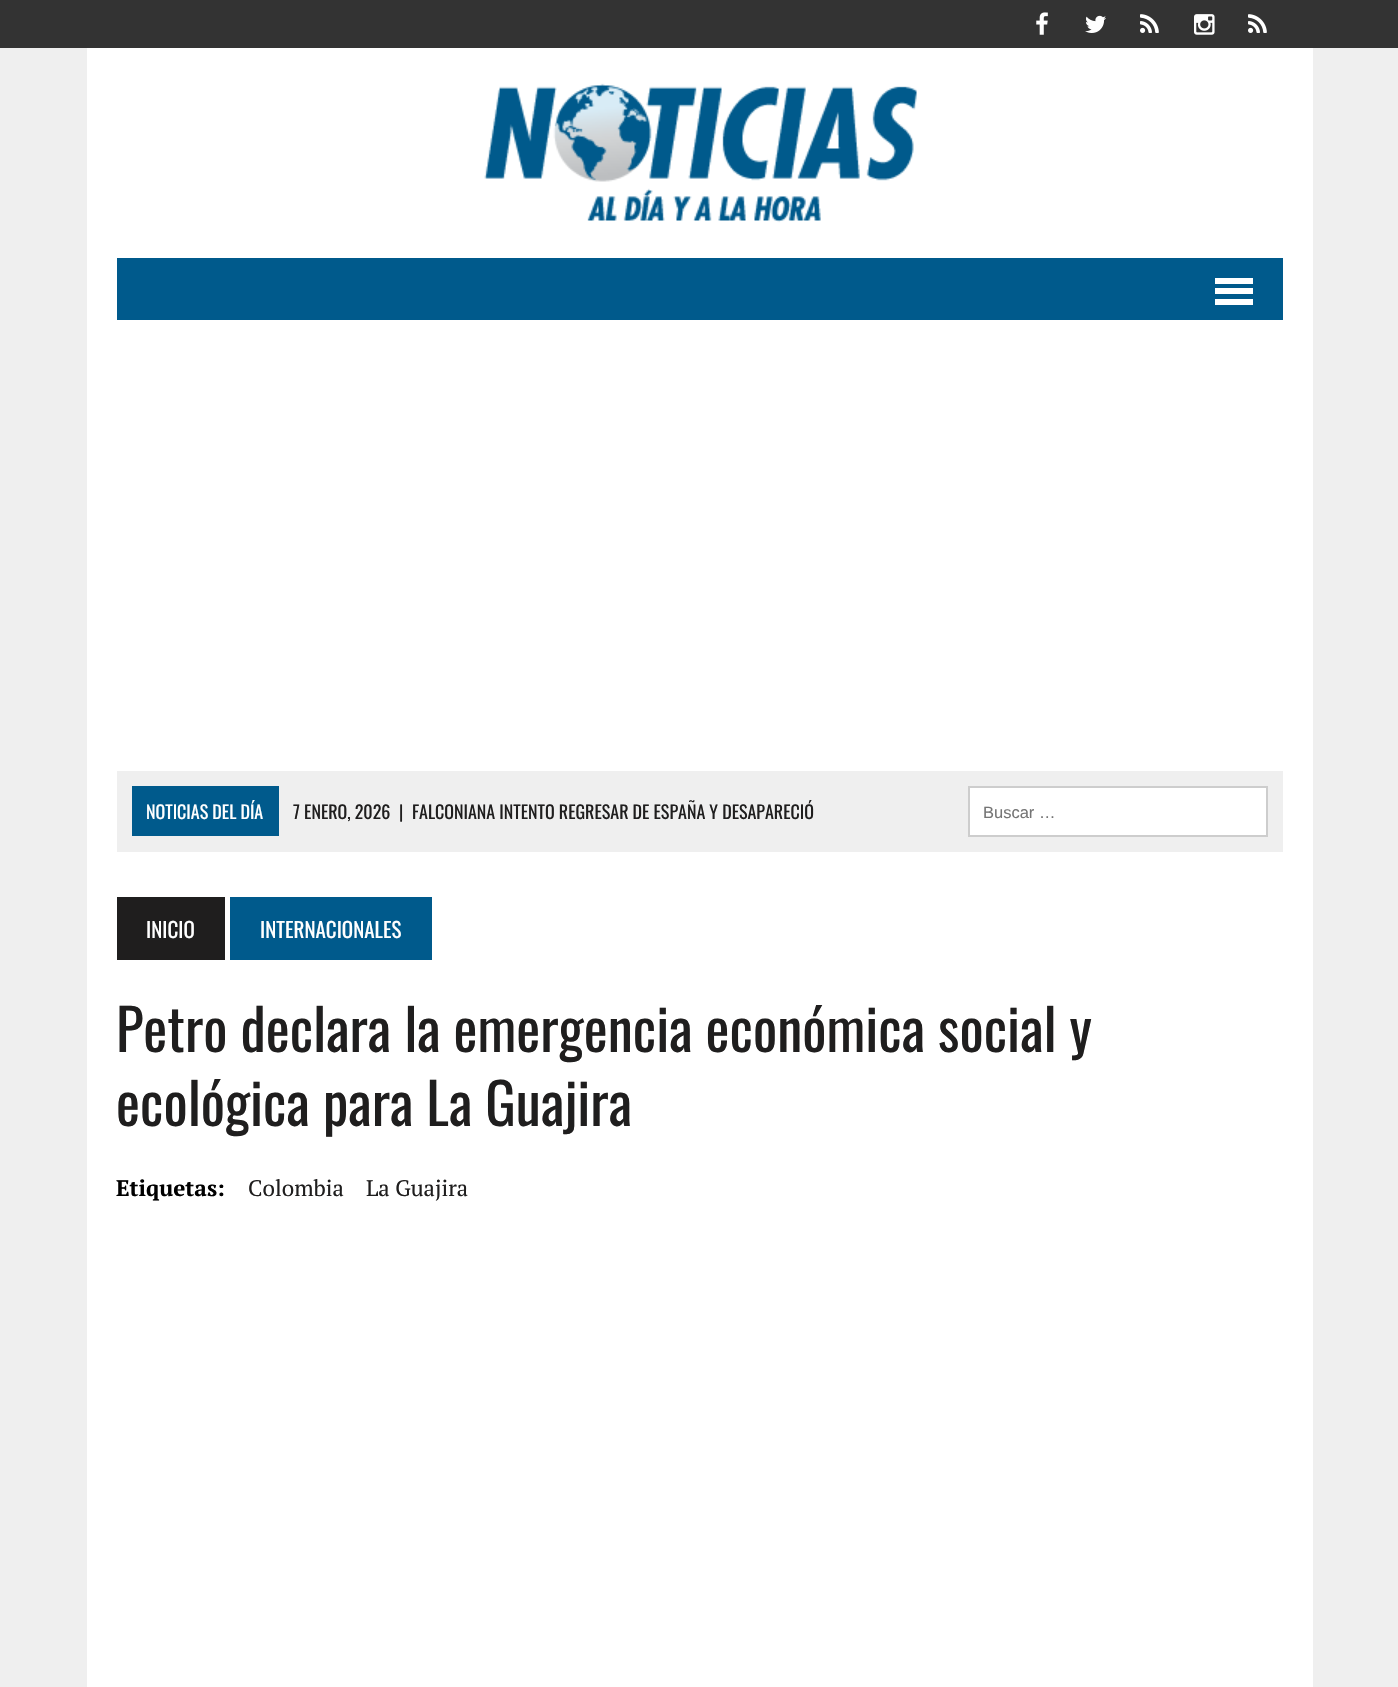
void draw(SkCanvas* canvas) {
    SkPaint paint;
    paint.setAntiAlias(true);
    canvas->clear(0xFFEFEFEF);
    paint.setColor(0xFF333333);
    canvas->drawRect(SkRect::MakeXYWH(0, 0, 1398, 48), paint);
    canvas->drawImageRect(SkImages::DeferredFromEncodedData(SkData::MakeFromFileName("img1.png")), SkRect::MakeXYWH(1036, 12, 12, 23), SkSamplingOptions());
    canvas->drawImageRect(SkImages::DeferredFromEncodedData(SkData::MakeFromFileName("img2.png")), SkRect::MakeXYWH(1085, 15, 21, 18), SkSamplingOptions());
    canvas->drawImageRect(SkImages::DeferredFromEncodedData(SkData::MakeFromFileName("img3.png")), SkRect::MakeXYWH(1140, 14, 19, 19), SkSamplingOptions());
    canvas->drawImageRect(SkImages::DeferredFromEncodedData(SkData::MakeFromFileName("img4.png")), SkRect::MakeXYWH(1194, 14, 21, 21), SkSamplingOptions());
    canvas->drawImageRect(SkImages::DeferredFromEncodedData(SkData::MakeFromFileName("img3.png")), SkRect::MakeXYWH(1248, 14, 19, 19), SkSamplingOptions());
    paint.setColor(0xFFFFFFFF);
    canvas->drawRect(SkRect::MakeXYWH(87, 48, 1226, 1639), paint);
    canvas->drawImageRect(SkImages::DeferredFromEncodedData(SkData::MakeFromFileName("img5.png")), SkRect::MakeXYWH(484, 83, 433, 140), SkSamplingOptions());
    paint.setColor(0xFF005A8C);
    canvas->drawRect(SkRect::MakeXYWH(117, 258, 1166, 62), paint);
    paint.setColor(0xFFFFFFFF);
    canvas->drawRect(SkRect::MakeXYWH(1215, 278, 38, 6), paint);
    canvas->drawRect(SkRect::MakeXYWH(1215, 288, 38, 6), paint);
    canvas->drawRect(SkRect::MakeXYWH(1215, 299, 38, 6), paint);
    paint.setColor(0xFFEFEFEF);
    canvas->drawRect(SkRect::MakeXYWH(117, 771, 1166, 81), paint);
    paint.setColor(0xFF005A8C);
    canvas->drawRect(SkRect::MakeXYWH(132, 786, 147, 50), paint);
    SkFont font1(fontMgr->matchFamilyStyle("Oswald", SkFontStyle::Normal()), 18);
    font1.setSubpixel(true);
    paint.setColor(0xFFFFFFFF);
    canvas->drawString("NOTICIAS DEL DÍA", 146, 819, font1, paint);
    paint.setColor(0xFF1F1E1E);
    canvas->drawString("7 ENERO, 2026", 293, 819, font1, paint);
    canvas->drawString("|", 399, 819, font1, paint);
    canvas->drawString("FALCONIANA INTENTO REGRESAR DE ESPAÑA Y DESAPARECIÓ", 412, 819, font1, paint);
    paint.setColor(0xFFFFFFFF);
    canvas->drawRect(SkRect::MakeXYWH(969, 787, 298, 49), paint);
    paint.setStyle(SkPaint::kStroke_Style);
    paint.setStrokeWidth(2);
    paint.setColor(0xFFCDCDCD);
    canvas->drawRect(SkRect::MakeXYWH(969, 787, 298, 49), paint);
    SkFont font2(fontMgr->matchFamilyStyle("Liberation Sans", SkFontStyle::Normal()), 16.5f);
    font2.setSubpixel(true);
    paint.setStyle(SkPaint::kFill_Style);
    paint.setColor(0xFF757575);
    canvas->drawString("Buscar …", 983, 818, font2, paint);
    paint.setColor(0xFF1F1E1E);
    canvas->drawRect(SkRect::MakeXYWH(117, 897, 108, 63), paint);
    SkFont font3(fontMgr->matchFamilyStyle("Oswald", SkFontStyle::Normal()), 21);
    font3.setSubpixel(true);
    paint.setColor(0xFFFFFFFF);
    canvas->drawString("INICIO", 146, 938, font3, paint);
    paint.setColor(0xFF005A8C);
    canvas->drawRect(SkRect::MakeXYWH(230, 897, 202, 63), paint);
    paint.setColor(0xFFFFFFFF);
    canvas->drawString("INTERNACIONALES", 260, 938, font3, paint);
    SkFont font4(fontMgr->matchFamilyStyle("Oswald", SkFontStyle::Normal()), 57);
    font4.setSubpixel(true);
    paint.setColor(0xFF1F1E1E);
    canvas->drawString("Petro declara la emergencia económica social y", 116, 1052, font4, paint);
    canvas->drawString("ecológica para La Guajira", 116, 1126, font4, paint);
    SkFont font5(fontMgr->matchFamilyStyle("PT Serif", SkFontStyle::Bold()), 22.5f);
    font5.setSubpixel(true);
    paint.setColor(0xFF000000);
    canvas->drawString("Etiquetas:", 116, 1196, font5, paint);
    SkFont font6(fontMgr->matchFamilyStyle("PT Serif", SkFontStyle::Normal()), 22.5f);
    font6.setSubpixel(true);
    paint.setColor(0xFF1F1E1E);
    canvas->drawString("Colombia", 248, 1196, font6, paint);
    canvas->drawString("La Guajira", 366, 1196, font6, paint);
}
